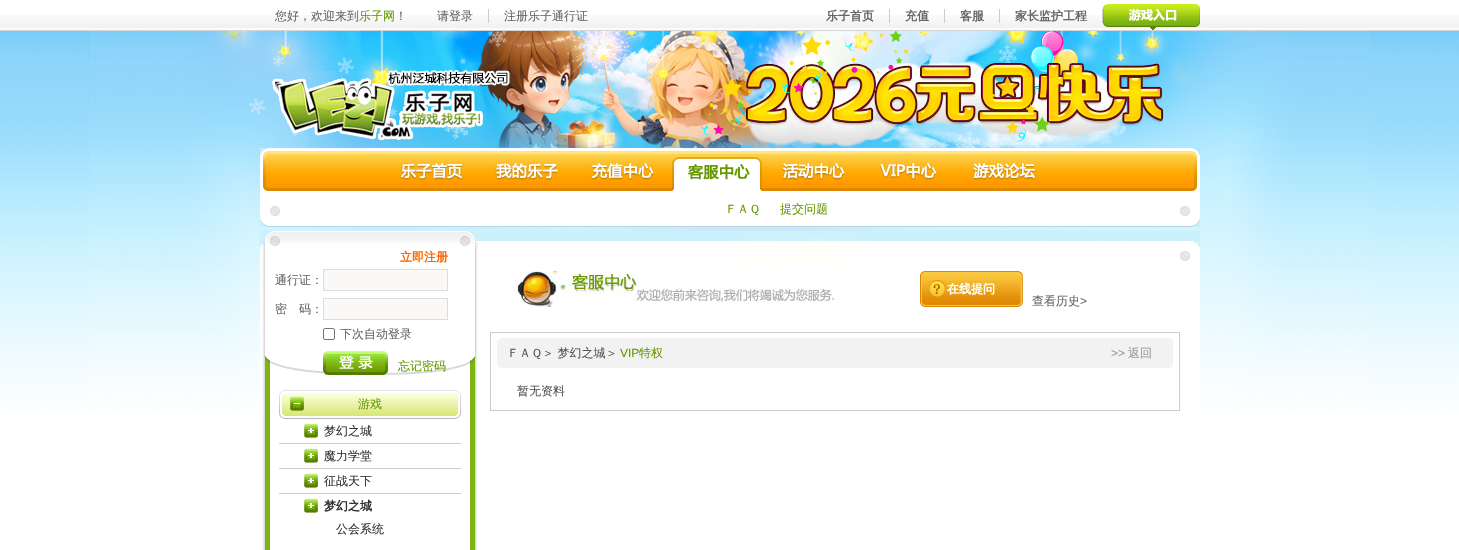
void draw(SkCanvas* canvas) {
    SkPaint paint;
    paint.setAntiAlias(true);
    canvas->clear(0xFFFFFFFF);
    canvas->drawImageRect(SkImages::DeferredFromEncodedData(SkData::MakeFromFileName("img1.png")), SkRect::MakeXYWH(0, 31, 1459, 382), SkSamplingOptions());
    canvas->drawImageRect(SkImages::DeferredFromEncodedData(SkData::MakeFromFileName("img2.png")), SkRect::MakeXYWH(0, 15, 1459, 16), SkSamplingOptions());
    SkFont font1(fontMgr->matchFamilyStyle("WenQuanYi Zen Hei", SkFontStyle(500, SkFontStyle::kNormal_Width, SkFontStyle::kUpright_Slant)), 12);
    font1.setSubpixel(true);
    paint.setColor(0xFF666666);
    canvas->drawString("您好，欢迎来到", 275, 20, font1, paint);
    paint.setColor(0xFF669900);
    canvas->drawString("乐子网", 359, 20, font1, paint);
    paint.setColor(0xFF666666);
    canvas->drawString("！", 395, 20, font1, paint);
    paint.setColor(0xFFCCCCCC);
    canvas->drawRect(SkRect::MakeXYWH(488, 9, 1, 14), paint);
    paint.setColor(0xFF666666);
    canvas->drawString("请登录", 437, 20, font1, paint);
    canvas->drawString("注册乐子通行证", 504, 20, font1, paint);
    paint.setColor(0xFFCCCCCC);
    canvas->drawRect(SkRect::MakeXYWH(889, 9, 1, 14), paint);
    SkFont font2(fontMgr->matchFamilyStyle("WenQuanYi Zen Hei", SkFontStyle::Bold()), 12);
    font2.setSubpixel(true);
    paint.setColor(0xFF666666);
    canvas->drawString("乐子首页", 826, 20, font2, paint);
    paint.setColor(0xFFCCCCCC);
    canvas->drawRect(SkRect::MakeXYWH(944, 9, 1, 14), paint);
    paint.setColor(0xFF666666);
    canvas->drawString("充值", 905, 20, font2, paint);
    paint.setColor(0xFFCCCCCC);
    canvas->drawRect(SkRect::MakeXYWH(999, 9, 1, 14), paint);
    paint.setColor(0xFF666666);
    canvas->drawString("客服", 960, 20, font2, paint);
    paint.setColor(0xFFCCCCCC);
    canvas->drawRect(SkRect::MakeXYWH(1102, 9, 1, 14), paint);
    paint.setColor(0xFF666666);
    canvas->drawString("家长监护工程", 1015, 20, font2, paint);
    canvas->drawImageRect(SkImages::DeferredFromEncodedData(SkData::MakeFromFileName("img3.png")), SkRect::MakeXYWH(1103, 4, 97, 26), SkSamplingOptions());
    canvas->drawImageRect(SkImages::DeferredFromEncodedData(SkData::MakeFromFileName("img4.png")), SkRect::MakeXYWH(90, 31, 1280, 378), SkSamplingOptions());
    canvas->drawImageRect(SkImages::DeferredFromEncodedData(SkData::MakeFromFileName("img5.png")), SkRect::MakeXYWH(260, 148, 940, 79), SkSamplingOptions());
    canvas->drawImageRect(SkImages::DeferredFromEncodedData(SkData::MakeFromFileName("img6.png")), SkRect::MakeXYWH(400, 163, 63, 17), SkSamplingOptions());
    canvas->drawImageRect(SkImages::DeferredFromEncodedData(SkData::MakeFromFileName("img7.png")), SkRect::MakeXYWH(495, 163, 64, 17), SkSamplingOptions());
    canvas->drawImageRect(SkImages::DeferredFromEncodedData(SkData::MakeFromFileName("img8.png")), SkRect::MakeXYWH(591, 163, 63, 17), SkSamplingOptions());
    canvas->drawImageRect(SkImages::DeferredFromEncodedData(SkData::MakeFromFileName("img9.png")), SkRect::MakeXYWH(782, 163, 63, 17), SkSamplingOptions());
    canvas->drawImageRect(SkImages::DeferredFromEncodedData(SkData::MakeFromFileName("img10.png")), SkRect::MakeXYWH(880, 163, 57, 17), SkSamplingOptions());
    canvas->drawImageRect(SkImages::DeferredFromEncodedData(SkData::MakeFromFileName("img11.png")), SkRect::MakeXYWH(972, 163, 64, 17), SkSamplingOptions());
    canvas->drawImageRect(SkImages::DeferredFromEncodedData(SkData::MakeFromFileName("img12.png")), SkRect::MakeXYWH(672, 157, 90, 34), SkSamplingOptions());
    paint.setColor(0xFF669900);
    canvas->drawString("ＦＡＱ", 725, 213, font1, paint);
    canvas->drawString("提交问题", 780, 213, font1, paint);
    paint.setColor(0xFFFFFFFF);
    canvas->drawRect(SkRect::MakeXYWH(260, 266, 940, 147), paint);
    canvas->drawImageRect(SkImages::DeferredFromEncodedData(SkData::MakeFromFileName("img13.png")), SkRect::MakeXYWH(260, 231, 940, 35), SkSamplingOptions());
    canvas->drawImageRect(SkImages::DeferredFromEncodedData(SkData::MakeFromFileName("img14.png")), SkRect::MakeXYWH(262, 251, 216, 299), SkSamplingOptions());
    canvas->drawRect(SkRect::MakeXYWH(265, 251, 210, 104), paint);
    canvas->drawImageRect(SkImages::DeferredFromEncodedData(SkData::MakeFromFileName("img15.png")), SkRect::MakeXYWH(264, 355, 212, 20), SkSamplingOptions());
    paint.setColor(0xFFFF6600);
    canvas->drawString("立即注册", 400, 261, font2, paint);
    paint.setColor(0xFF666666);
    canvas->drawString("通行证：", 275, 284, font1, paint);
    paint.setColor(0xFFFAF9F7);
    canvas->drawRect(SkRect::MakeXYWH(323.5f, 269.5f, 124, 21), paint);
    paint.setStyle(SkPaint::kStroke_Style);
    paint.setStrokeWidth(1);
    paint.setColor(0xFFDDDDDD);
    canvas->drawRect(SkRect::MakeXYWH(323.5f, 269.5f, 124, 21), paint);
    paint.setStyle(SkPaint::kFill_Style);
    paint.setColor(0xFF666666);
    canvas->drawString("密　码：", 275, 313, font1, paint);
    paint.setColor(0xFFFAF9F7);
    canvas->drawRect(SkRect::MakeXYWH(323.5f, 298.5f, 124, 21), paint);
    paint.setStyle(SkPaint::kStroke_Style);
    paint.setColor(0xFFDDDDDD);
    canvas->drawRect(SkRect::MakeXYWH(323.5f, 298.5f, 124, 21), paint);
    paint.setColor(0xFF767676);
    canvas->drawRoundRect(SkRect::MakeXYWH(323.5f, 328.5f, 11, 11), 1.5f, 1.5f, paint);
    paint.setStyle(SkPaint::kFill_Style);
    paint.setColor(0xFF666666);
    canvas->drawString("下次自动登录", 340, 338, font1, paint);
    canvas->drawImageRect(SkImages::DeferredFromEncodedData(SkData::MakeFromFileName("img16.png")), SkRect::MakeXYWH(323, 351, 65, 24), SkSamplingOptions());
    paint.setColor(0xFF669900);
    canvas->drawString("忘记密码", 398, 370, font1, paint);
    canvas->drawImageRect(SkImages::DeferredFromEncodedData(SkData::MakeFromFileName("img18.png")), SkRect::MakeXYWH(279, 390, 182, 29), SkSamplingOptions());
    canvas->drawImageRect(SkImages::DeferredFromEncodedData(SkData::MakeFromFileName("img17.png")), SkRect::MakeXYWH(290, 396, 14, 15), SkSamplingOptions());
    canvas->drawString("游戏", 358, 408, font1, paint);
    canvas->drawImageRect(SkImages::DeferredFromEncodedData(SkData::MakeFromFileName("img19.png")), SkRect::MakeXYWH(304, 423, 14, 15), SkSamplingOptions());
    paint.setColor(0xFF333333);
    canvas->drawString("梦幻之城", 324, 435, font1, paint);
    paint.setColor(0xFFCCCCCC);
    canvas->drawRect(SkRect::MakeXYWH(279, 443, 182, 1), paint);
    canvas->drawImageRect(SkImages::DeferredFromEncodedData(SkData::MakeFromFileName("img19.png")), SkRect::MakeXYWH(304, 448, 14, 15), SkSamplingOptions());
    paint.setColor(0xFF333333);
    canvas->drawString("魔力学堂", 324, 460, font1, paint);
    paint.setColor(0xFFCCCCCC);
    canvas->drawRect(SkRect::MakeXYWH(279, 468, 182, 1), paint);
    canvas->drawImageRect(SkImages::DeferredFromEncodedData(SkData::MakeFromFileName("img19.png")), SkRect::MakeXYWH(304, 473, 14, 15), SkSamplingOptions());
    paint.setColor(0xFF333333);
    canvas->drawString("征战天下", 324, 485, font1, paint);
    paint.setColor(0xFFCCCCCC);
    canvas->drawRect(SkRect::MakeXYWH(279, 493, 182, 1), paint);
    canvas->drawImageRect(SkImages::DeferredFromEncodedData(SkData::MakeFromFileName("img19.png")), SkRect::MakeXYWH(304, 498, 14, 15), SkSamplingOptions());
    paint.setColor(0xFF333333);
    canvas->drawString("梦幻之城", 324, 510, font2, paint);
    canvas->drawString("公会系统", 336, 533, font1, paint);
    canvas->drawImageRect(SkImages::DeferredFromEncodedData(SkData::MakeFromFileName("img20.png")), SkRect::MakeXYWH(514, 271, 320, 36), SkSamplingOptions());
    canvas->drawImageRect(SkImages::DeferredFromEncodedData(SkData::MakeFromFileName("img21.png")), SkRect::MakeXYWH(920, 271, 103, 36), SkSamplingOptions());
    paint.setColor(0xFFFFFFFF);
    canvas->drawString("在线提问", 947, 293, font2, paint);
    paint.setColor(0xFF666666);
    canvas->drawString("查看历史", 1032, 305, font1, paint);
    SkFont font3(fontMgr->matchFamilyStyle("Liberation Sans", SkFontStyle::Normal()), 12);
    font3.setSubpixel(true);
    canvas->drawString(">", 1080, 305, font3, paint);
    paint.setStyle(SkPaint::kStroke_Style);
    paint.setColor(0xFFCCCCCC);
    canvas->drawRect(SkRect::MakeXYWH(490.5f, 332.5f, 689, 78), paint);
    paint.setStyle(SkPaint::kFill_Style);
    paint.setColor(0xFFF2F2F2);
    canvas->drawRect(SkRect::MakeXYWH(497, 338, 676, 30), paint);
    canvas->drawImageRect(SkImages::DeferredFromEncodedData(SkData::MakeFromFileName("img22.png")), SkRect::MakeXYWH(497, 338, 4, 3), SkSamplingOptions());
    paint.setColor(0xFFF9F9F9);
    canvas->drawRect(SkRect::MakeXYWH(1170, 338, 3, 3), paint);
    paint.setColor(0xFF555555);
    canvas->drawString("ＦＡＱ＞ 梦幻之城＞", 507, 357, font1, paint);
    paint.setColor(0xFF669900);
    canvas->drawString("VIP", 620, 357, font3, paint);
    canvas->drawString("特权", 639, 357, font1, paint);
    paint.setColor(0xFF999999);
    canvas->drawString(">>", 1111, 357, font3, paint);
    canvas->drawString("返回", 1128, 357, font1, paint);
    canvas->drawImageRect(SkImages::DeferredFromEncodedData(SkData::MakeFromFileName("img23.png")), SkRect::MakeXYWH(497, 365, 4, 3), SkSamplingOptions());
    paint.setColor(0xFFF9F9F9);
    canvas->drawRect(SkRect::MakeXYWH(1170, 365, 3, 3), paint);
    paint.setColor(0xFF555555);
    canvas->drawString("暂无资料", 517, 395, font1, paint);
}
